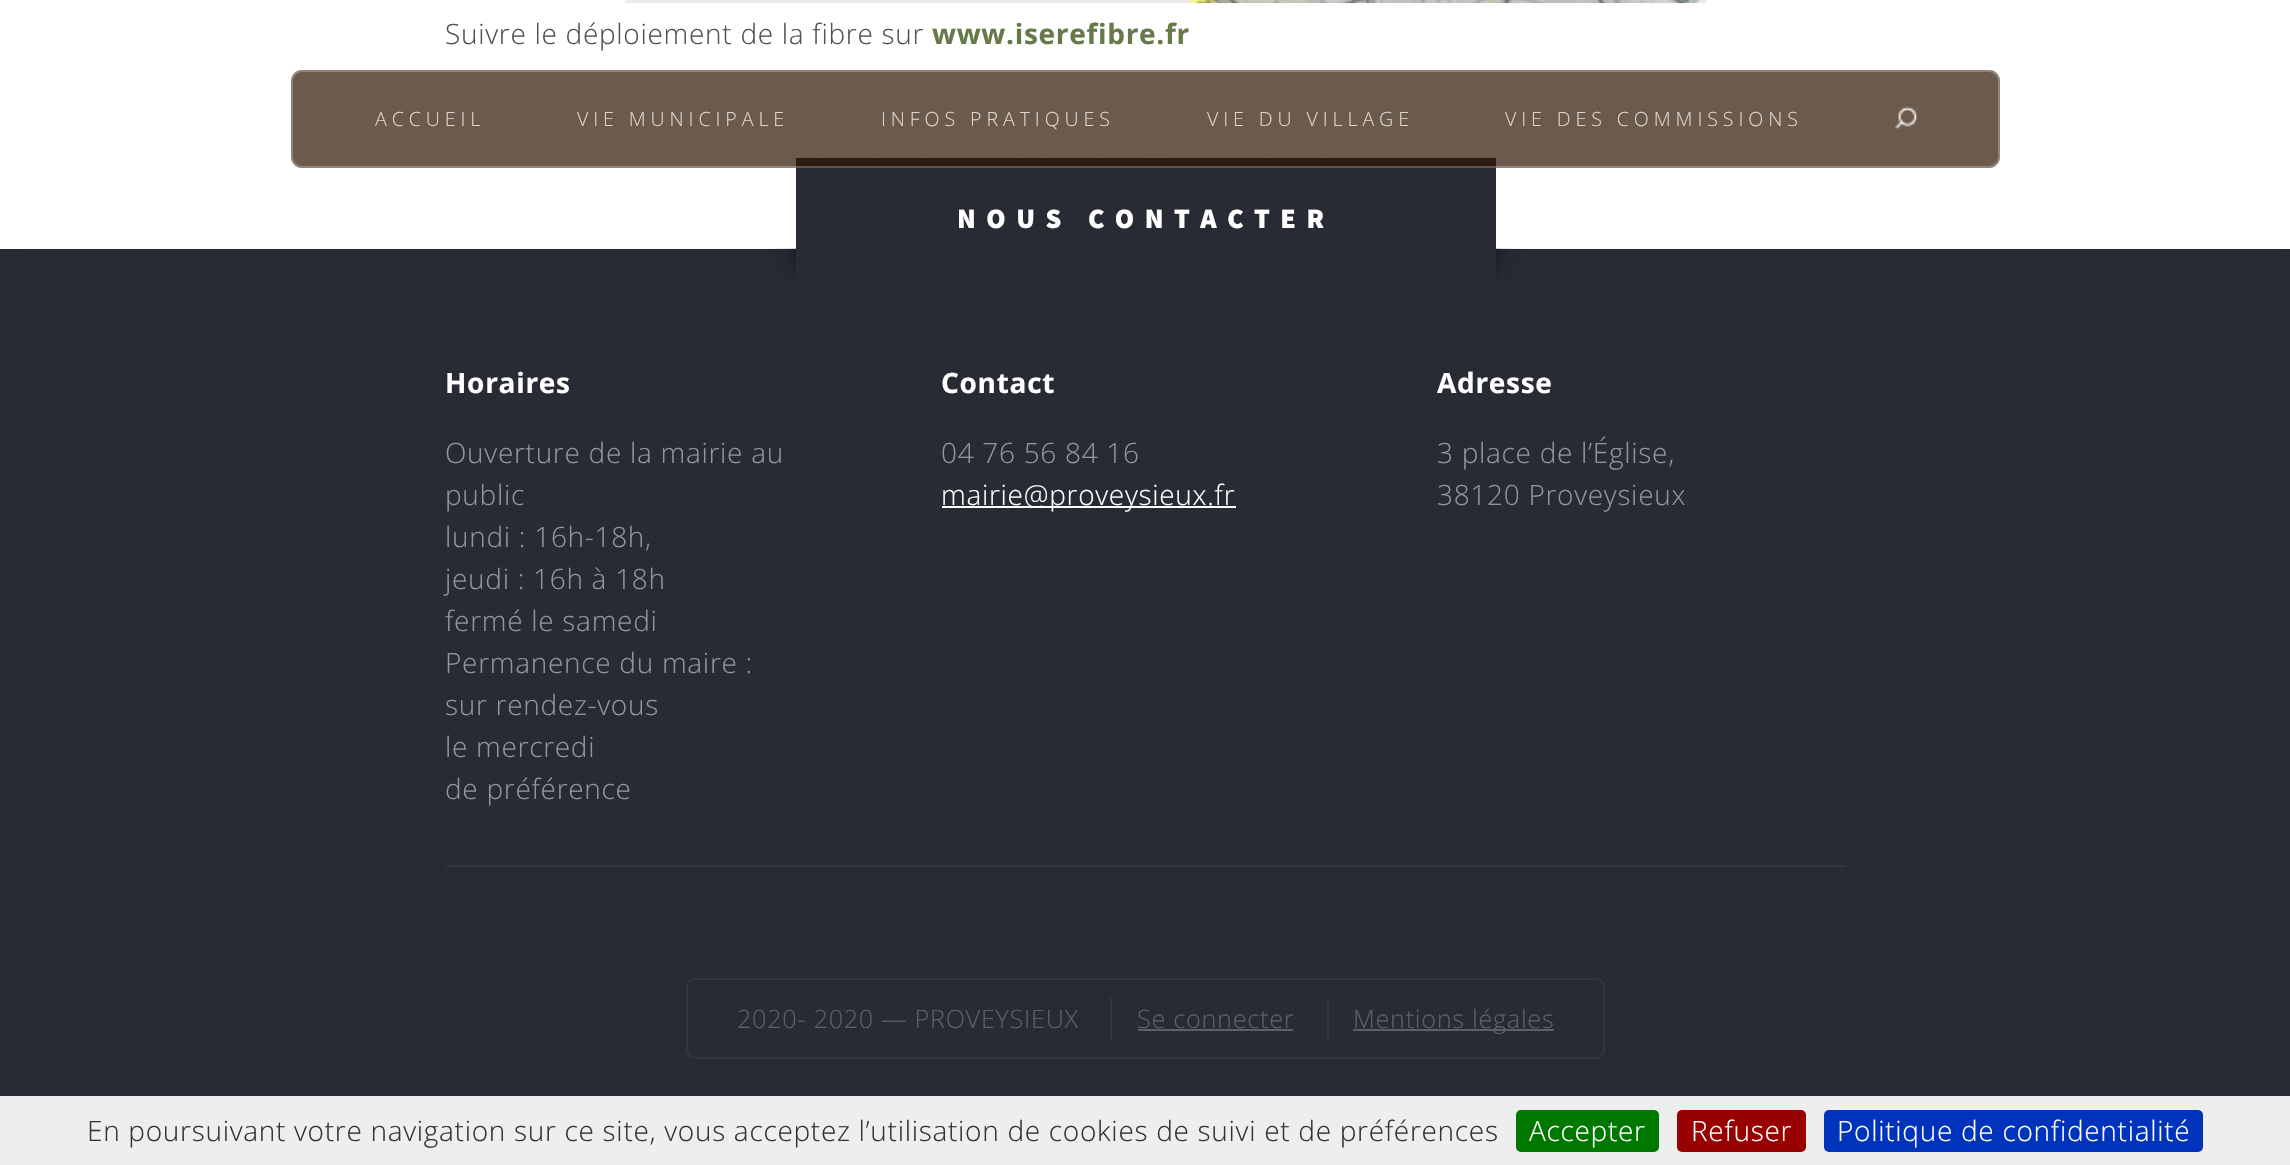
void draw(SkCanvas* canvas) {
    SkPaint paint;
    paint.setAntiAlias(true);
    auto spacedText = [&](const char* s, float x, float y, const SkFont& font, const SkPaint& ink, float letter, float word) {
        std::vector<SkGlyphID> glyphs(font.countText(s, strlen(s), SkTextEncoding::kUTF8));
        std::vector<float> xs(glyphs.size());
        font.textToGlyphs(s, strlen(s), SkTextEncoding::kUTF8, glyphs);
        font.getXPos(glyphs, xs, x);
        float extra = 0;
        for (size_t i = 0; i < glyphs.size(); i++) {
            xs[i] += extra;
            extra += letter + word * (glyphs[i] == font.unicharToGlyph(' '));
        }
        canvas->drawTextBlob(SkTextBlob::MakeFromPosHGlyphs(glyphs, xs, y, font), 0, 0, ink);
    };
    canvas->clear(0xFFFFFFFF);
    canvas->drawImageRect(SkImages::DeferredFromEncodedData(SkData::MakeFromFileName("img1.png")), SkRect::MakeXYWH(625, 0, 1081, 4), SkSamplingOptions());
    SkFont font1(fontMgr->matchFamilyStyle("Open Sans", SkFontStyle(300, SkFontStyle::kNormal_Width, SkFontStyle::kUpright_Slant)), 28);
    font1.setSubpixel(true);
    paint.setColor(0xFF4F5053);
    spacedText("Suivre le déploiement de la fibre sur", 445, 44, font1, paint, 0.7f, 0);
    SkFont font2(fontMgr->matchFamilyStyle("Open Sans", SkFontStyle::Bold()), 28);
    font2.setSubpixel(true);
    paint.setColor(0xFF667949);
    spacedText("www.iserefibre.fr", 932, 44, font2, paint, 0.7f, 0);
    canvas->drawImageRect(SkImages::DeferredFromEncodedData(SkData::MakeFromFileName("img3.png")), SkRect::MakeXYWH(29, 248, 2251, 1), SkSamplingOptions());
    paint.setColor(0xFF282B34);
    canvas->drawRect(SkRect::MakeXYWH(796, 158, 700, 91), paint);
    canvas->drawImageRect(SkImages::DeferredFromEncodedData(SkData::MakeFromFileName("img4.png")), SkRect::MakeXYWH(803, 157, 690, 1), SkSamplingOptions());
    paint.setColor(0xB32E1400);
    canvas->drawRoundRect(SkRect::MakeXYWH(291, 70, 1709, 98), 11, 11, paint);
    paint.setStyle(SkPaint::kStroke_Style);
    paint.setStrokeWidth(2);
    paint.setColor(0x40FFFFFF);
    canvas->drawRoundRect(SkRect::MakeXYWH(292, 71, 1707, 96), 10, 10, paint);
    SkFont font3(fontMgr->matchFamilyStyle("Open Sans", SkFontStyle(300, SkFontStyle::kNormal_Width, SkFontStyle::kUpright_Slant)), 19.6f);
    font3.setSubpixel(true);
    paint.setStyle(SkPaint::kFill_Style);
    paint.setColor(0xFFDAD6D2);
    spacedText("ACCUEIL", 375, 126, font3, paint, 4.9f, 0);
    spacedText("VIE MUNICIPALE", 577, 126, font3, paint, 4.9f, 0);
    spacedText("INFOS PRATIQUES", 881, 126, font3, paint, 4.9f, 0);
    spacedText("VIE DU VILLAGE", 1207, 126, font3, paint, 4.9f, 0);
    spacedText("VIE DES COMMISSIONS", 1505, 126, font3, paint, 4.9f, 0);
    canvas->drawImageRect(SkImages::DeferredFromEncodedData(SkData::MakeFromFileName("img2.png")), SkRect::MakeXYWH(1894, 106, 23, 24), SkSamplingOptions());
    paint.setColor(0xFF282B34);
    canvas->drawRect(SkRect::MakeXYWH(0, 249, 2290, 847), paint);
    SkFont font4(fontMgr->matchFamilyStyle("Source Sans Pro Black", SkFontStyle(900, SkFontStyle::kNormal_Width, SkFontStyle::kUpright_Slant)), 28);
    font4.setSubpixel(true);
    paint.setColor(0xFFFFFFFF);
    spacedText("NOUS CONTACTER", 957, 228, font4, paint, 10.5f, 0);
    canvas->drawImageRect(SkImages::DeferredFromEncodedData(SkData::MakeFromFileName("img5.png")), SkRect::MakeXYWH(766, 248, 30, 35), SkSamplingOptions());
    canvas->drawImageRect(SkImages::DeferredFromEncodedData(SkData::MakeFromFileName("img6.png")), SkRect::MakeXYWH(1496, 248, 31, 34), SkSamplingOptions());
    spacedText("Horaires", 445, 393, font2, paint, 0.7f, 0);
    paint.setColor(0xFF94959A);
    spacedText("Ouverture de la mairie au", 445, 463, font1, paint, 0.7f, 0);
    spacedText("public", 445, 505, font1, paint, 0.7f, 0);
    spacedText("lundi : 16h-18h,", 445, 547, font1, paint, 0.7f, 0);
    spacedText("jeudi : 16h à 18h", 445, 589, font1, paint, 0.7f, 0);
    spacedText("fermé le samedi", 445, 631, font1, paint, 0.7f, 0);
    spacedText("Permanence du maire :", 445, 673, font1, paint, 0.7f, 0);
    spacedText("sur rendez-vous", 445, 715, font1, paint, 0.7f, 0);
    spacedText("le mercredi", 445, 757, font1, paint, 0.7f, 0);
    spacedText("de préférence", 445, 799, font1, paint, 0.7f, 0);
    paint.setColor(0xFFFFFFFF);
    spacedText("Contact", 941, 393, font2, paint, 0.7f, 0);
    paint.setColor(0xFF94959A);
    spacedText("04 76 56 84 16", 941, 463, font1, paint, 0.7f, 0);
    paint.setColor(0xFFFFFFFF);
    canvas->drawRect(SkRect::MakeXYWH(942, 506, 294, 2), paint);
    spacedText("mairie@proveysieux.fr", 941, 505, font1, paint, 0.7f, 0);
    spacedText("Adresse", 1437, 393, font2, paint, 0.7f, 0);
    paint.setColor(0xFF94959A);
    spacedText("3 place de l’Église,", 1437, 463, font1, paint, 0.7f, 0);
    spacedText("38120 Proveysieux", 1437, 505, font1, paint, 0.7f, 0);
    paint.setColor(0xFF33363E);
    canvas->drawRect(SkRect::MakeXYWH(446, 865, 1400, 2), paint);
    paint.setStyle(SkPaint::kStroke_Style);
    canvas->drawRoundRect(SkRect::MakeXYWH(687, 979, 917, 79), 8, 8, paint);
    SkFont font5(fontMgr->matchFamilyStyle("Open Sans", SkFontStyle(300, SkFontStyle::kNormal_Width, SkFontStyle::kUpright_Slant)), 25.25f);
    font5.setSubpixel(true);
    paint.setStyle(SkPaint::kFill_Style);
    paint.setColor(0xFF5E6067);
    spacedText("2020- 2020 — PROVEYSIEUX", 737, 1028, font5, paint, 0.7f, 0);
    paint.setColor(0xFF33363E);
    canvas->drawRect(SkRect::MakeXYWH(1110, 998, 2, 42), paint);
    paint.setColor(0xFF5E6067);
    spacedText("Se connecter", 1137, 1028, font5, paint, 0.7f, 0);
    canvas->drawRect(SkRect::MakeXYWH(1138, 1029, 155, 2), paint);
    paint.setColor(0xFF33363E);
    canvas->drawRect(SkRect::MakeXYWH(1327, 998, 2, 42), paint);
    paint.setColor(0xFF5E6067);
    canvas->drawRect(SkRect::MakeXYWH(1353, 1029, 201, 2), paint);
    spacedText("Mentions légales", 1353, 1028, font5, paint, 0.7f, 0);
    paint.setColor(0xFFEEEEEE);
    canvas->drawRect(SkRect::MakeXYWH(0, 1096, 2290, 69), paint);
    paint.setColor(0xFF333333);
    spacedText("En poursuivant votre navigation sur ce site, vous acceptez l’utilisation de cookies de suivi et de préférences", 87, 1141, font1, paint, 0.7f, 0);
    paint.setColor(0xFF007700);
    canvas->drawRoundRect(SkRect::MakeXYWH(1516, 1110, 143, 42), 5, 5, paint);
    paint.setColor(0xFFFFFFFF);
    spacedText("Accepter", 1529, 1141, font1, paint, 0.7f, 0);
    paint.setColor(0xFF990000);
    canvas->drawRoundRect(SkRect::MakeXYWH(1677, 1110, 129, 42), 5, 5, paint);
    paint.setColor(0xFFFFFFFF);
    spacedText("Refuser", 1691, 1141, font1, paint, 0.7f, 0);
    paint.setColor(0xFF0033BB);
    canvas->drawRoundRect(SkRect::MakeXYWH(1824, 1110, 379, 42), 5, 5, paint);
    paint.setColor(0xFFFFFFFF);
    spacedText("Politique de confidentialité", 1837, 1141, font1, paint, 0.7f, 0);
}
